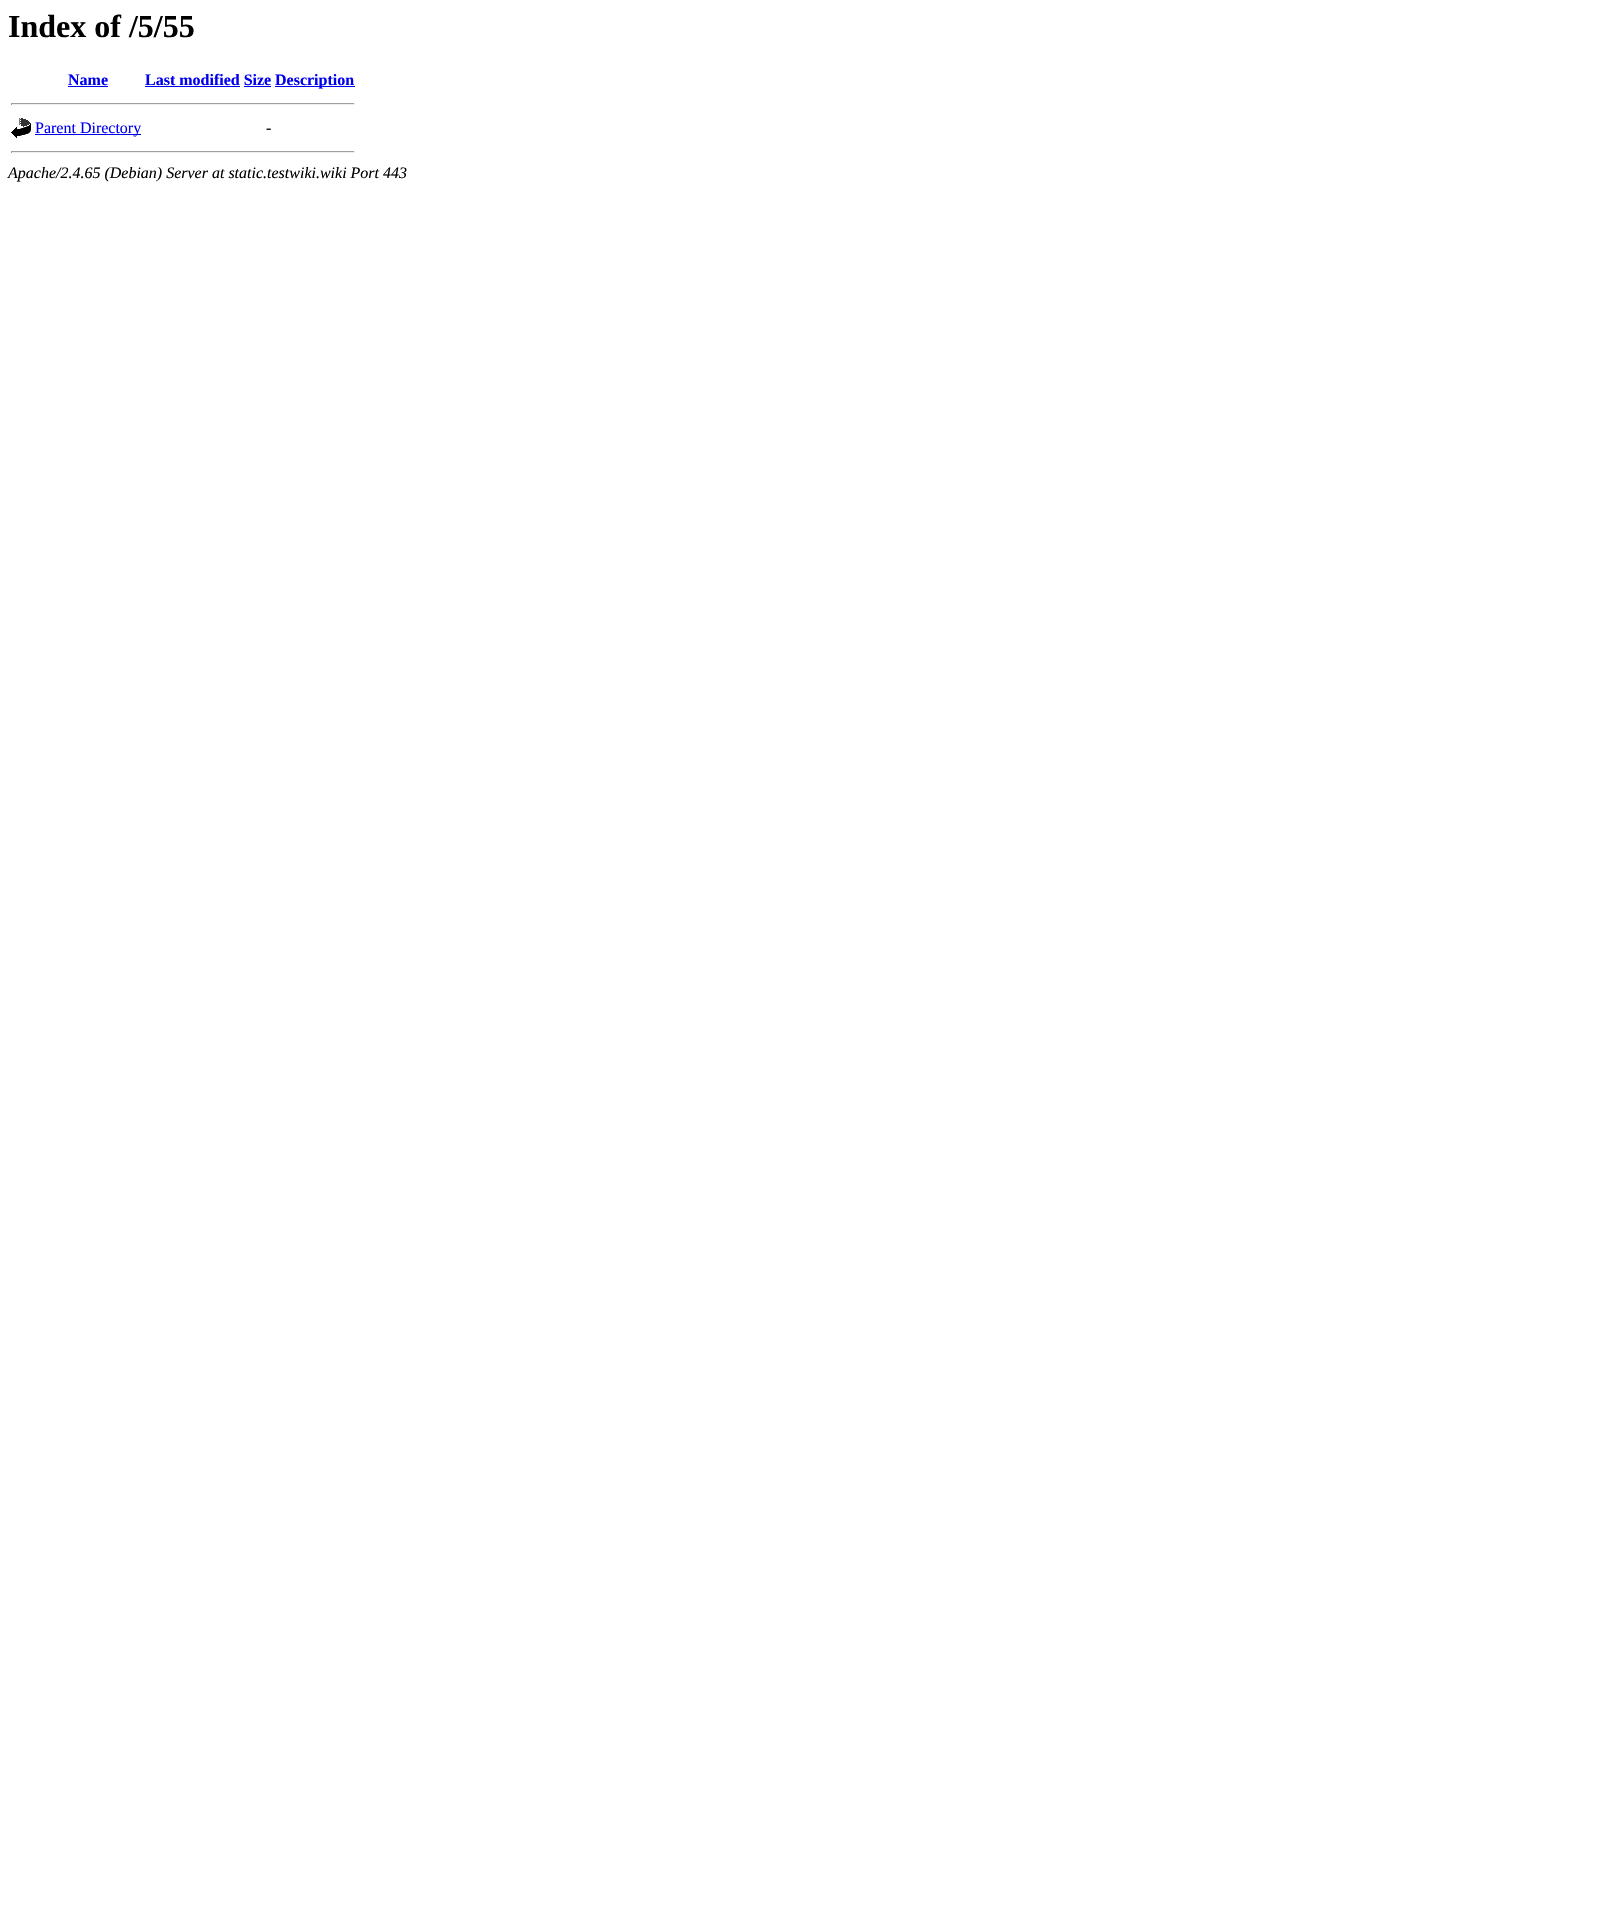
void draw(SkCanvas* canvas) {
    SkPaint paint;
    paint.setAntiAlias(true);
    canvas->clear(0xFFFFFFFF);
    SkFont font1(fontMgr->matchFamilyStyle("Liberation Serif", SkFontStyle::Bold()), 32);
    font1.setSubpixel(true);
    paint.setColor(0xFF000000);
    canvas->drawString("Index of /5/55", 8, 37, font1, paint);
    SkFont font2(fontMgr->matchFamilyStyle("Liberation Serif", SkFontStyle::Bold()), 16);
    font2.setSubpixel(true);
    paint.setColor(0xFF0000EE);
    canvas->drawString("Name", 68, 85, font2, paint);
    canvas->drawRect(SkRect::MakeXYWH(68, 86, 40, 1), paint);
    canvas->drawString("Last modified Size", 145, 85, font2, paint);
    canvas->drawRect(SkRect::MakeXYWH(145, 86, 95, 1), paint);
    canvas->drawRect(SkRect::MakeXYWH(275, 86, 80, 1), paint);
    canvas->drawString("Description", 275, 85, font2, paint);
    canvas->drawRect(SkRect::MakeXYWH(244, 86, 27, 1), paint);
    paint.setColor(0xFF9F9F9F);
    canvas->drawRect(SkRect::MakeXYWH(11, 103, 344, 1), paint);
    paint.setColor(0xFFEEEEEE);
    canvas->drawRect(SkRect::MakeXYWH(354, 103, 1, 2), paint);
    canvas->drawRect(SkRect::MakeXYWH(11, 104, 344, 1), paint);
    paint.setColor(0xFF9F9F9F);
    canvas->drawRect(SkRect::MakeXYWH(11, 103, 1, 2), paint);
    canvas->drawImageRect(SkImages::DeferredFromEncodedData(SkData::MakeFromFileName("img1.png")), SkRect::MakeXYWH(11, 118, 20, 20), SkSamplingOptions());
    paint.setColor(0xFF0000EE);
    canvas->drawRect(SkRect::MakeXYWH(35, 134, 106, 1), paint);
    SkFont font3(fontMgr->matchFamilyStyle("Liberation Serif", SkFontStyle::Normal()), 16);
    font3.setSubpixel(true);
    canvas->drawString("Parent Directory", 35, 133, font3, paint);
    paint.setColor(0xFF000000);
    canvas->drawString("-", 266, 133, font3, paint);
    paint.setColor(0xFF9F9F9F);
    canvas->drawRect(SkRect::MakeXYWH(11, 151, 344, 1), paint);
    paint.setColor(0xFFEEEEEE);
    canvas->drawRect(SkRect::MakeXYWH(354, 151, 1, 2), paint);
    canvas->drawRect(SkRect::MakeXYWH(11, 152, 344, 1), paint);
    paint.setColor(0xFF9F9F9F);
    canvas->drawRect(SkRect::MakeXYWH(11, 151, 1, 2), paint);
    SkFont font4(fontMgr->matchFamilyStyle("Liberation Serif", SkFontStyle::Italic()), 16);
    font4.setSubpixel(true);
    paint.setColor(0xFF000000);
    canvas->drawString("Apache/2.4.65 (Debian) Server at static.testwiki.wiki Port 443", 8, 178, font4, paint);
}
